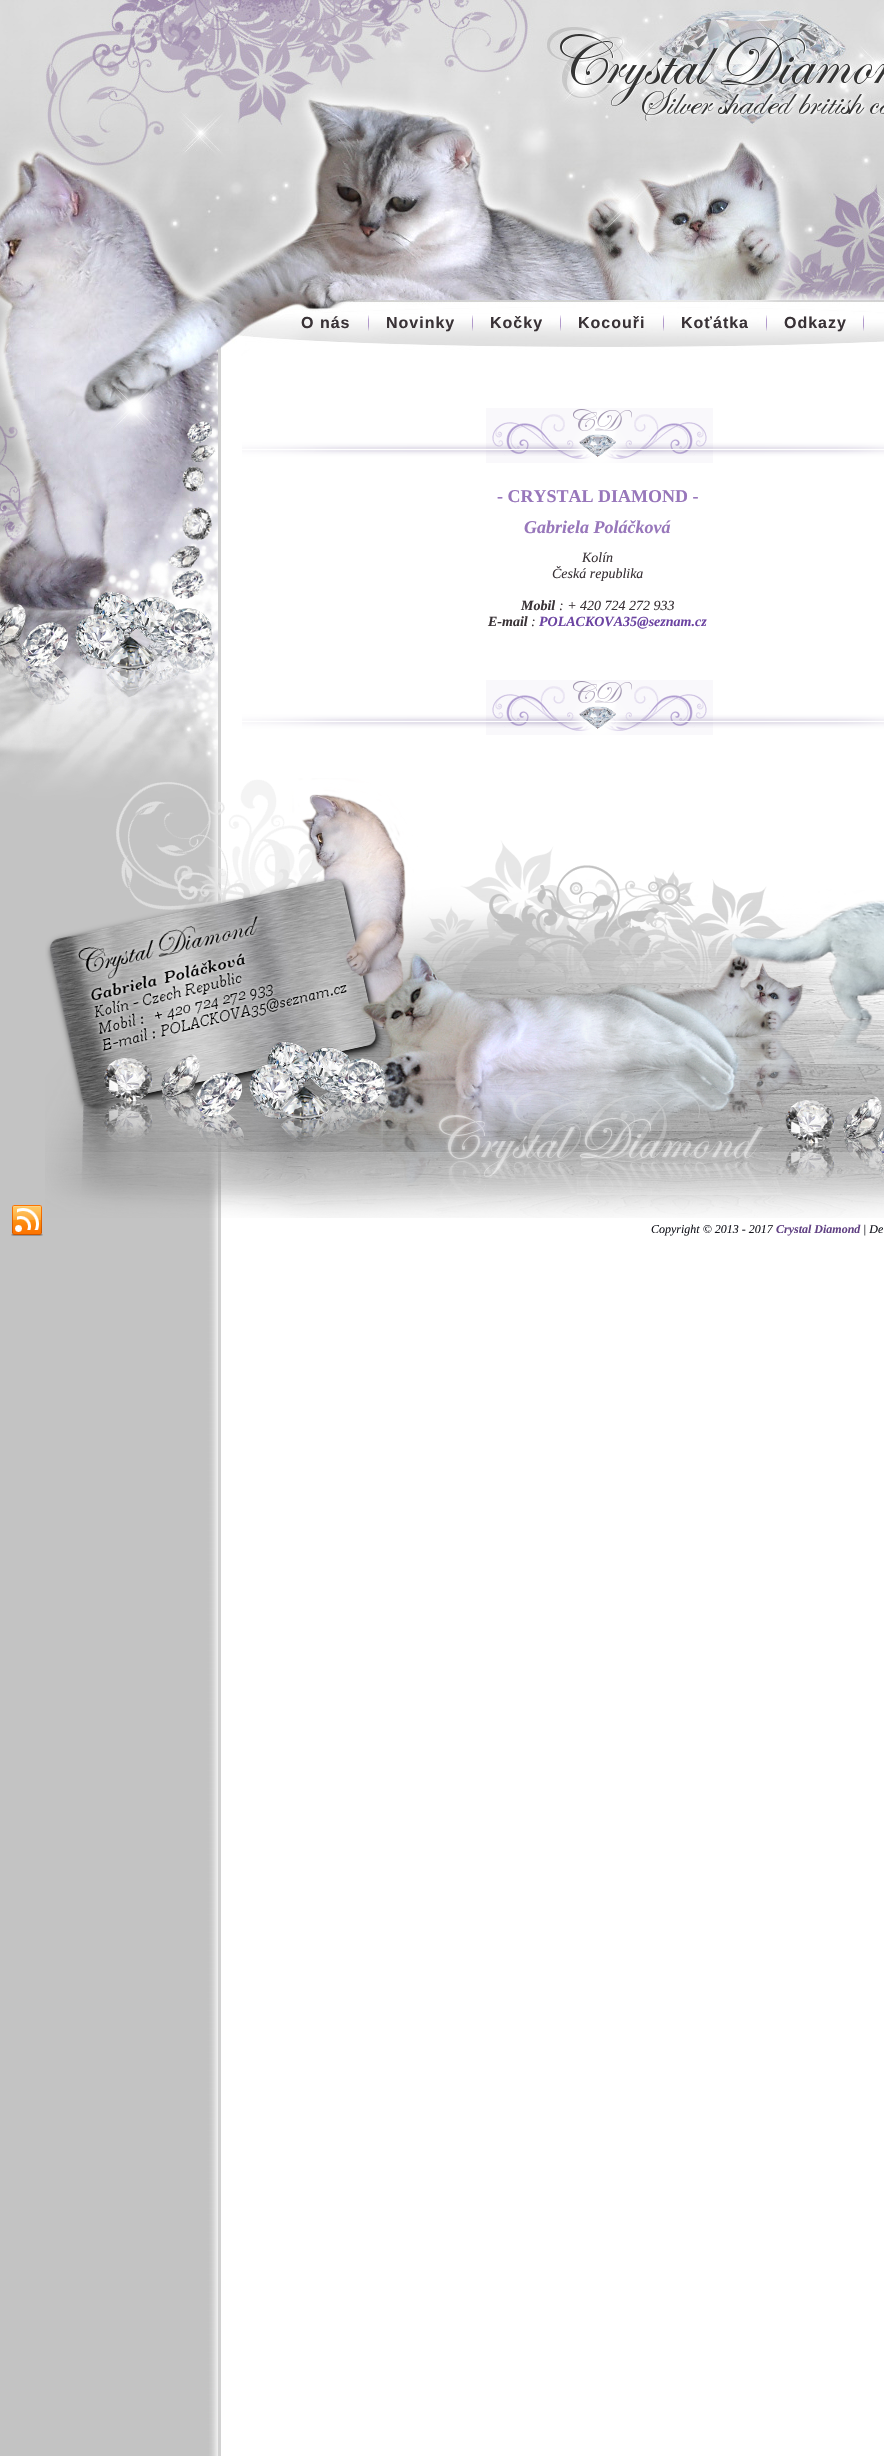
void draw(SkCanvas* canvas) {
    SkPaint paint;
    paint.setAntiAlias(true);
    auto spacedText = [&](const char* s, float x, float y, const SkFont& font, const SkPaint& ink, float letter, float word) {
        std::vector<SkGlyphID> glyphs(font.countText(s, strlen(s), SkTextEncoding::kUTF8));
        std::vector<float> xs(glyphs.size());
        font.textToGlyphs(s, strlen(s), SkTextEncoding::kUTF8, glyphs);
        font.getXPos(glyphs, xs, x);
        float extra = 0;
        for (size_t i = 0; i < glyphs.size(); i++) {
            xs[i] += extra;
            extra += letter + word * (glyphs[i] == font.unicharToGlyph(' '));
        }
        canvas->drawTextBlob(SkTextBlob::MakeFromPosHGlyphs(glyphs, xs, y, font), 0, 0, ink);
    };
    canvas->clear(0xFFFFFFFF);
    canvas->drawImageRect(SkImages::DeferredFromEncodedData(SkData::MakeFromFileName("img1.png")), SkRect::MakeXYWH(0, 350, 884, 2106), SkSamplingOptions());
    canvas->drawImageRect(SkImages::DeferredFromEncodedData(SkData::MakeFromFileName("img2.png")), SkRect::MakeXYWH(0, 0, 884, 350), SkSamplingOptions());
    SkFont font1(fontMgr->matchFamilyStyle("Liberation Sans", SkFontStyle::Bold()), 16);
    font1.setSubpixel(true);
    paint.setColor(0xFF393236);
    spacedText("O nás", 301, 328, font1, paint, 1, 0);
    canvas->drawImageRect(SkImages::DeferredFromEncodedData(SkData::MakeFromFileName("img3.png")), SkRect::MakeXYWH(368, 315, 1, 16), SkSamplingOptions());
    spacedText("Novinky", 386, 328, font1, paint, 1, 0);
    canvas->drawImageRect(SkImages::DeferredFromEncodedData(SkData::MakeFromFileName("img4.png")), SkRect::MakeXYWH(472, 315, 1, 16), SkSamplingOptions());
    spacedText("Kočky", 490, 328, font1, paint, 1, 0);
    canvas->drawImageRect(SkImages::DeferredFromEncodedData(SkData::MakeFromFileName("img5.png")), SkRect::MakeXYWH(560, 315, 1, 16), SkSamplingOptions());
    spacedText("Kocouři", 578, 328, font1, paint, 1, 0);
    canvas->drawImageRect(SkImages::DeferredFromEncodedData(SkData::MakeFromFileName("img6.png")), SkRect::MakeXYWH(663, 315, 1, 16), SkSamplingOptions());
    spacedText("Koťátka", 681, 328, font1, paint, 1, 0);
    canvas->drawImageRect(SkImages::DeferredFromEncodedData(SkData::MakeFromFileName("img7.png")), SkRect::MakeXYWH(766, 315, 1, 16), SkSamplingOptions());
    spacedText("Odkazy", 784, 328, font1, paint, 1, 0);
    canvas->drawImageRect(SkImages::DeferredFromEncodedData(SkData::MakeFromFileName("img8.png")), SkRect::MakeXYWH(863, 315, 1, 16), SkSamplingOptions());
    paint.setColor(0x1CFFFFFF);
    canvas->drawRect(SkRect::MakeXYWH(86, 626, 1, 2), paint);
    canvas->drawImageRect(SkImages::DeferredFromEncodedData(SkData::MakeFromFileName("img9.png")), SkRect::MakeXYWH(242, 408, 642, 55), SkSamplingOptions());
    SkFont font2(fontMgr->matchFamilyStyle("Liberation Serif", SkFontStyle::Bold()), 18);
    font2.setSubpixel(true);
    paint.setColor(0xFF9877BB);
    canvas->drawString("- CRYSTAL DIAMOND -", 497, 502, font2, paint);
    SkFont font3(fontMgr->matchFamilyStyle("Liberation Serif", SkFontStyle::BoldItalic()), 18);
    font3.setSubpixel(true);
    canvas->drawString("Gabriela Poláčková", 524, 533, font3, paint);
    SkFont font4(fontMgr->matchFamilyStyle("Liberation Serif", SkFontStyle::Italic()), 14);
    font4.setSubpixel(true);
    paint.setColor(0xFF393236);
    canvas->drawString("Kolín", 582, 562, font4, paint);
    canvas->drawString("Česká republika", 552, 578, font4, paint);
    SkFont font5(fontMgr->matchFamilyStyle("Liberation Serif", SkFontStyle::BoldItalic()), 14);
    font5.setSubpixel(true);
    canvas->drawString("Mobil", 521, 610, font5, paint);
    canvas->drawString(": + 420 724 272 933", 559, 610, font4, paint);
    canvas->drawString("E-mail", 488, 626, font5, paint);
    canvas->drawString(":", 531, 626, font4, paint);
    paint.setColor(0xFF6C44A2);
    canvas->drawString("POLACKOVA35@seznam.cz", 539, 626, font5, paint);
    canvas->drawImageRect(SkImages::DeferredFromEncodedData(SkData::MakeFromFileName("img9.png")), SkRect::MakeXYWH(242, 680, 642, 55), SkSamplingOptions());
    canvas->drawImageRect(SkImages::DeferredFromEncodedData(SkData::MakeFromFileName("img10.png")), SkRect::MakeXYWH(11, 1205, 32, 31), SkSamplingOptions());
    canvas->drawImageRect(SkImages::DeferredFromEncodedData(SkData::MakeFromFileName("img11.png")), SkRect::MakeXYWH(45, 778, 839, 440), SkSamplingOptions());
    SkFont font6(fontMgr->matchFamilyStyle("Liberation Serif", SkFontStyle::Italic()), 12);
    font6.setSubpixel(true);
    paint.setColor(0xFF15161E);
    canvas->drawString("Copyright © 2013 - 2017", 651, 1233, font6, paint);
    SkFont font7(fontMgr->matchFamilyStyle("Liberation Serif", SkFontStyle::BoldItalic()), 12);
    font7.setSubpixel(true);
    paint.setColor(0xFF624384);
    canvas->drawString("Crystal Diamond", 776, 1233, font7, paint);
    paint.setColor(0xFF15161E);
    canvas->drawString("| De", 863, 1233, font6, paint);
}
